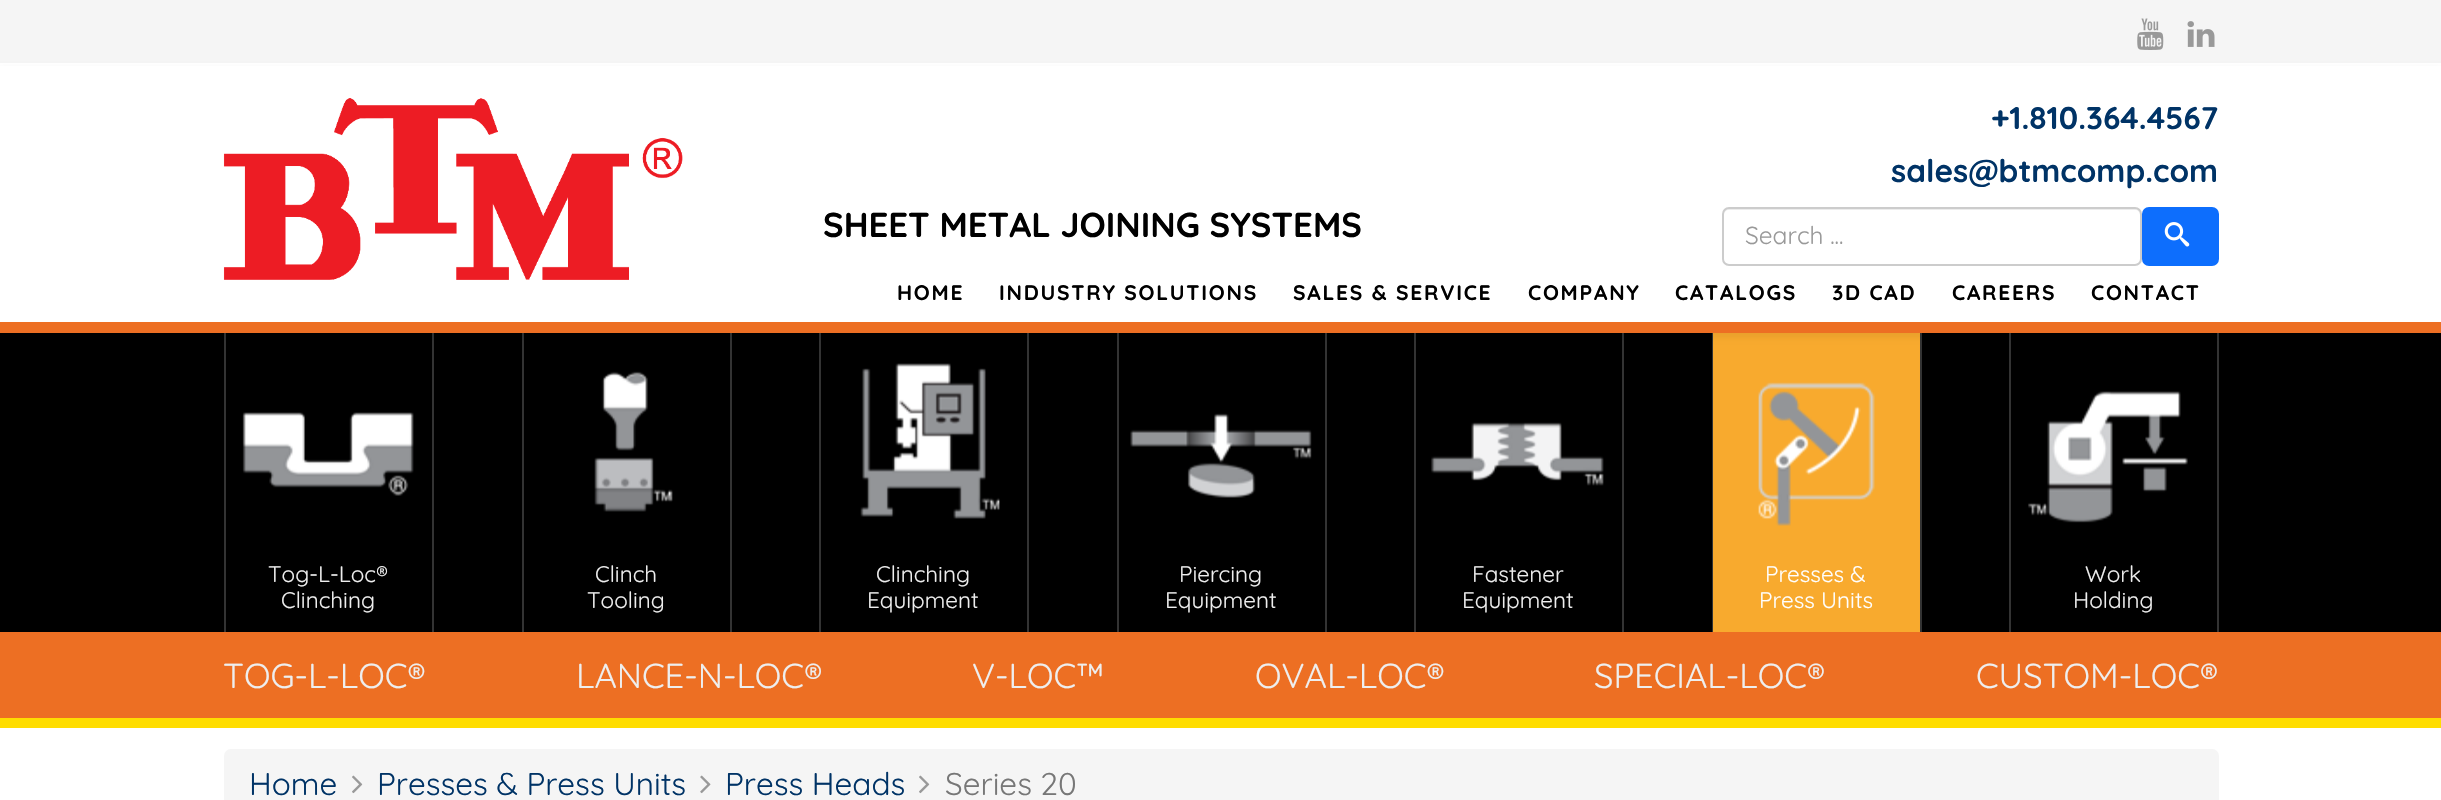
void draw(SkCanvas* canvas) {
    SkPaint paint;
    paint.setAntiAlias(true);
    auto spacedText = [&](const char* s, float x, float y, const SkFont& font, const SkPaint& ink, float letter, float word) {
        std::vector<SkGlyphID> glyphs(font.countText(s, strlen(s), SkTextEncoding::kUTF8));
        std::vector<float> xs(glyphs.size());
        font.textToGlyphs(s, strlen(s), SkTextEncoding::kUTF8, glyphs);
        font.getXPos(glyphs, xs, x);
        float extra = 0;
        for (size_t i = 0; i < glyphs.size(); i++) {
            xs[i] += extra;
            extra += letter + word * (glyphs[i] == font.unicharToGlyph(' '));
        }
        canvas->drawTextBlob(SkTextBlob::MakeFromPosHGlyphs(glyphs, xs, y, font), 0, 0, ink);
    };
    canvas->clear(0xFFFFFFFF);
    paint.setColor(0xFFF5F5F5);
    canvas->drawRect(SkRect::MakeXYWH(0, 0, 2441, 63), paint);
    canvas->drawImageRect(SkImages::DeferredFromEncodedData(SkData::MakeFromFileName("img1.png")), SkRect::MakeXYWH(2137, 18, 27, 32), SkSamplingOptions());
    canvas->drawImageRect(SkImages::DeferredFromEncodedData(SkData::MakeFromFileName("img2.png")), SkRect::MakeXYWH(2187, 21, 28, 26), SkSamplingOptions());
    paint.setColor(0xFF000000);
    canvas->drawRect(SkRect::MakeXYWH(0, 333, 2441, 299), paint);
    paint.setColor(0xFF333333);
    canvas->drawRect(SkRect::MakeXYWH(432, 333, 2, 299), paint);
    canvas->drawRect(SkRect::MakeXYWH(224, 333, 2, 299), paint);
    canvas->drawRect(SkRect::MakeXYWH(730, 333, 2, 299), paint);
    canvas->drawRect(SkRect::MakeXYWH(522, 333, 2, 299), paint);
    canvas->drawRect(SkRect::MakeXYWH(1027, 333, 2, 299), paint);
    canvas->drawRect(SkRect::MakeXYWH(819, 333, 2, 299), paint);
    canvas->drawRect(SkRect::MakeXYWH(1325, 333, 2, 299), paint);
    canvas->drawRect(SkRect::MakeXYWH(1117, 333, 2, 299), paint);
    canvas->drawRect(SkRect::MakeXYWH(1622, 333, 2, 299), paint);
    canvas->drawRect(SkRect::MakeXYWH(1414, 333, 2, 299), paint);
    canvas->drawRect(SkRect::MakeXYWH(1920, 333, 2, 299), paint);
    canvas->drawRect(SkRect::MakeXYWH(1712, 333, 1, 299), paint);
    paint.setColor(0xFFF8AA2E);
    canvas->drawRect(SkRect::MakeXYWH(1713, 333, 207, 299), paint);
    paint.setColor(0xFF333333);
    canvas->drawRect(SkRect::MakeXYWH(2217, 333, 2, 299), paint);
    canvas->drawRect(SkRect::MakeXYWH(2009, 333, 2, 299), paint);
    paint.setColor(0x0D000000);
    paint.setMaskFilter(SkMaskFilter::MakeBlur(kNormal_SkBlurStyle, 2.5f));
    canvas->drawRect(SkRect::MakeXYWH(0, 68, 2441, 270), paint);
    paint.setMaskFilter(nullptr);
    paint.setColor(0xFFFFFFFF);
    canvas->drawRect(SkRect::MakeXYWH(0, 66, 2441, 256), paint);
    paint.setColor(0xFFED6F23);
    canvas->drawRect(SkRect::MakeXYWH(0, 322, 2441, 11), paint);
    canvas->drawImageRect(SkImages::DeferredFromEncodedData(SkData::MakeFromFileName("img3.png")), SkRect::MakeXYWH(223, 98, 460, 182), SkSamplingOptions());
    SkFont font1(fontMgr->matchFamilyStyle("Quicksand", SkFontStyle::Bold()), 31.5f);
    font1.setSubpixel(true);
    paint.setColor(0xFF003366);
    canvas->drawString("+1.810.364.4567", 1991, 129, font1, paint);
    canvas->drawString("sales@btmcomp.com", 1891, 182, font1, paint);
    SkFont font2(fontMgr->matchFamilyStyle("Quicksand", SkFontStyle::Bold()), 34.6f);
    font2.setSubpixel(true);
    paint.setColor(0xFF000000);
    canvas->drawString("SHEET METAL JOINING SYSTEMS", 823, 237, font2, paint);
    paint.setColor(0xFFECECEC);
    canvas->drawPath(SkPathBuilder().moveTo(1729, 210).lineTo(2135, 210).cubicTo(2138, 210, 2140, 212, 2140, 215).lineTo(2140, 213).cubicTo(2140, 210, 2138, 208, 2135, 208).lineTo(1729, 208).cubicTo(1726, 208, 1724, 210, 1724, 213).lineTo(1724, 215).cubicTo(1724, 212, 1726, 210, 1729, 210).close().detach(), paint);
    paint.setStyle(SkPaint::kStroke_Style);
    paint.setStrokeWidth(2);
    paint.setColor(0xFFCCCCCC);
    canvas->drawRoundRect(SkRect::MakeXYWH(1723, 208, 418, 57), 6, 6, paint);
    SkFont font3(fontMgr->matchFamilyStyle("Quicksand", SkFontStyle::Normal()), 24.5f);
    font3.setSubpixel(true);
    paint.setStyle(SkPaint::kFill_Style);
    paint.setColor(0xFF999999);
    canvas->drawString("Search ...", 1745, 244, font3, paint);
    paint.setColor(0xFF0D6EFD);
    canvas->drawRoundRect(SkRect::MakeXYWH(2143, 208, 75, 57), 6, 6, paint);
    paint.setStyle(SkPaint::kStroke_Style);
    canvas->drawRoundRect(SkRect::MakeXYWH(2143, 208, 75, 57), 6, 6, paint);
    canvas->drawImageRect(SkImages::DeferredFromEncodedData(SkData::MakeFromFileName("img4.png")), SkRect::MakeXYWH(2164, 222, 26, 25), SkSamplingOptions());
    SkFont font4(fontMgr->matchFamilyStyle("Quicksand", SkFontStyle::Bold()), 21);
    font4.setSubpixel(true);
    paint.setStyle(SkPaint::kFill_Style);
    paint.setColor(0xFF000000);
    spacedText("HOME", 897, 300, font4, paint, 1.75f, 0);
    spacedText("INDUSTRY SOLUTIONS", 999, 300, font4, paint, 1.75f, 0);
    spacedText("SALES & SERVICE", 1293, 300, font4, paint, 1.75f, 0);
    spacedText("COMPANY", 1528, 300, font4, paint, 1.75f, 0);
    spacedText("CATALOGS", 1675, 300, font4, paint, 1.75f, 0);
    spacedText("3D CAD", 1832, 300, font4, paint, 1.75f, 0);
    spacedText("CAREERS", 1952, 300, font4, paint, 1.75f, 0);
    spacedText("CONTACT", 2091, 300, font4, paint, 1.75f, 0);
    canvas->drawImageRect(SkImages::DeferredFromEncodedData(SkData::MakeFromFileName("img5.png")), SkRect::MakeXYWH(242, 412, 172, 84), SkSamplingOptions());
    SkFont font5(fontMgr->matchFamilyStyle("Quicksand", SkFontStyle::Normal()), 22.5f);
    font5.setSubpixel(true);
    paint.setColor(0xFFEEEEEE);
    canvas->drawString("Tog-L-Loc®", 268, 582, font5, paint);
    canvas->drawString("Clinching", 281, 608, font5, paint);
    canvas->drawImageRect(SkImages::DeferredFromEncodedData(SkData::MakeFromFileName("img6.png")), SkRect::MakeXYWH(594, 371, 79, 141), SkSamplingOptions());
    canvas->drawString("Clinch", 595, 582, font5, paint);
    canvas->drawString("Tooling", 587, 608, font5, paint);
    canvas->drawImageRect(SkImages::DeferredFromEncodedData(SkData::MakeFromFileName("img7.png")), SkRect::MakeXYWH(860, 363, 140, 156), SkSamplingOptions());
    canvas->drawString("Clinching", 876, 582, font5, paint);
    canvas->drawString("Equipment", 867, 608, font5, paint);
    canvas->drawImageRect(SkImages::DeferredFromEncodedData(SkData::MakeFromFileName("img8.png")), SkRect::MakeXYWH(1130, 413, 182, 85), SkSamplingOptions());
    canvas->drawString("Piercing", 1179, 582, font5, paint);
    canvas->drawString("Equipment", 1165, 608, font5, paint);
    canvas->drawImageRect(SkImages::DeferredFromEncodedData(SkData::MakeFromFileName("img9.png")), SkRect::MakeXYWH(1431, 422, 173, 64), SkSamplingOptions());
    canvas->drawString("Fastener", 1472, 582, font5, paint);
    canvas->drawString("Equipment", 1462, 608, font5, paint);
    canvas->drawImageRect(SkImages::DeferredFromEncodedData(SkData::MakeFromFileName("img10.png")), SkRect::MakeXYWH(1758, 382, 117, 144), SkSamplingOptions());
    paint.setColor(0xFFFFFFFF);
    canvas->drawString("Presses &", 1765, 582, font5, paint);
    canvas->drawString("Press Units", 1759, 608, font5, paint);
    canvas->drawImageRect(SkImages::DeferredFromEncodedData(SkData::MakeFromFileName("img11.png")), SkRect::MakeXYWH(2028, 391, 160, 132), SkSamplingOptions());
    paint.setColor(0xFFEEEEEE);
    canvas->drawString("Work", 2085, 582, font5, paint);
    canvas->drawString("Holding", 2073, 608, font5, paint);
    paint.setColor(0xFFED6F23);
    canvas->drawRect(SkRect::MakeXYWH(0, 632, 2441, 86), paint);
    paint.setColor(0xFFFFDD00);
    canvas->drawRect(SkRect::MakeXYWH(0, 718, 2441, 10), paint);
    SkFont font6(fontMgr->matchFamilyStyle("Quicksand", SkFontStyle::Normal()), 34.6f);
    font6.setSubpixel(true);
    paint.setColor(0xFFEEEEEE);
    canvas->drawString("TOG-L-LOC®", 223, 688, font6, paint);
    canvas->drawString("LANCE-N-LOC®", 576, 688, font6, paint);
    canvas->drawString("V-LOC™", 972, 688, font6, paint);
    canvas->drawString("OVAL-LOC®", 1255, 688, font6, paint);
    canvas->drawString("SPECIAL-LOC®", 1594, 688, font6, paint);
    canvas->drawString("CUSTOM-LOC®", 1976, 688, font6, paint);
    paint.setColor(0xFFF5F5F5);
    canvas->drawRoundRect(SkRect::MakeXYWH(224, 749, 1995, 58), 7, 7, paint);
    SkFont font7(fontMgr->matchFamilyStyle("Quicksand", SkFontStyle::Normal()), 31.5f);
    font7.setSubpixel(true);
    paint.setColor(0xFF003366);
    canvas->drawString("Home", 249, 795, font7, paint);
    canvas->drawImageRect(SkImages::DeferredFromEncodedData(SkData::MakeFromFileName("img12.png")), SkRect::MakeXYWH(352, 775, 11, 19), SkSamplingOptions());
    canvas->drawString("Presses & Press Units", 377, 795, font7, paint);
    canvas->drawImageRect(SkImages::DeferredFromEncodedData(SkData::MakeFromFileName("img13.png")), SkRect::MakeXYWH(700, 775, 11, 19), SkSamplingOptions());
    canvas->drawString("Press Heads", 725, 795, font7, paint);
    canvas->drawImageRect(SkImages::DeferredFromEncodedData(SkData::MakeFromFileName("img12.png")), SkRect::MakeXYWH(919, 775, 11, 19), SkSamplingOptions());
    paint.setColor(0xFF777777);
    canvas->drawString("Series 20", 945, 795, font7, paint);
}
